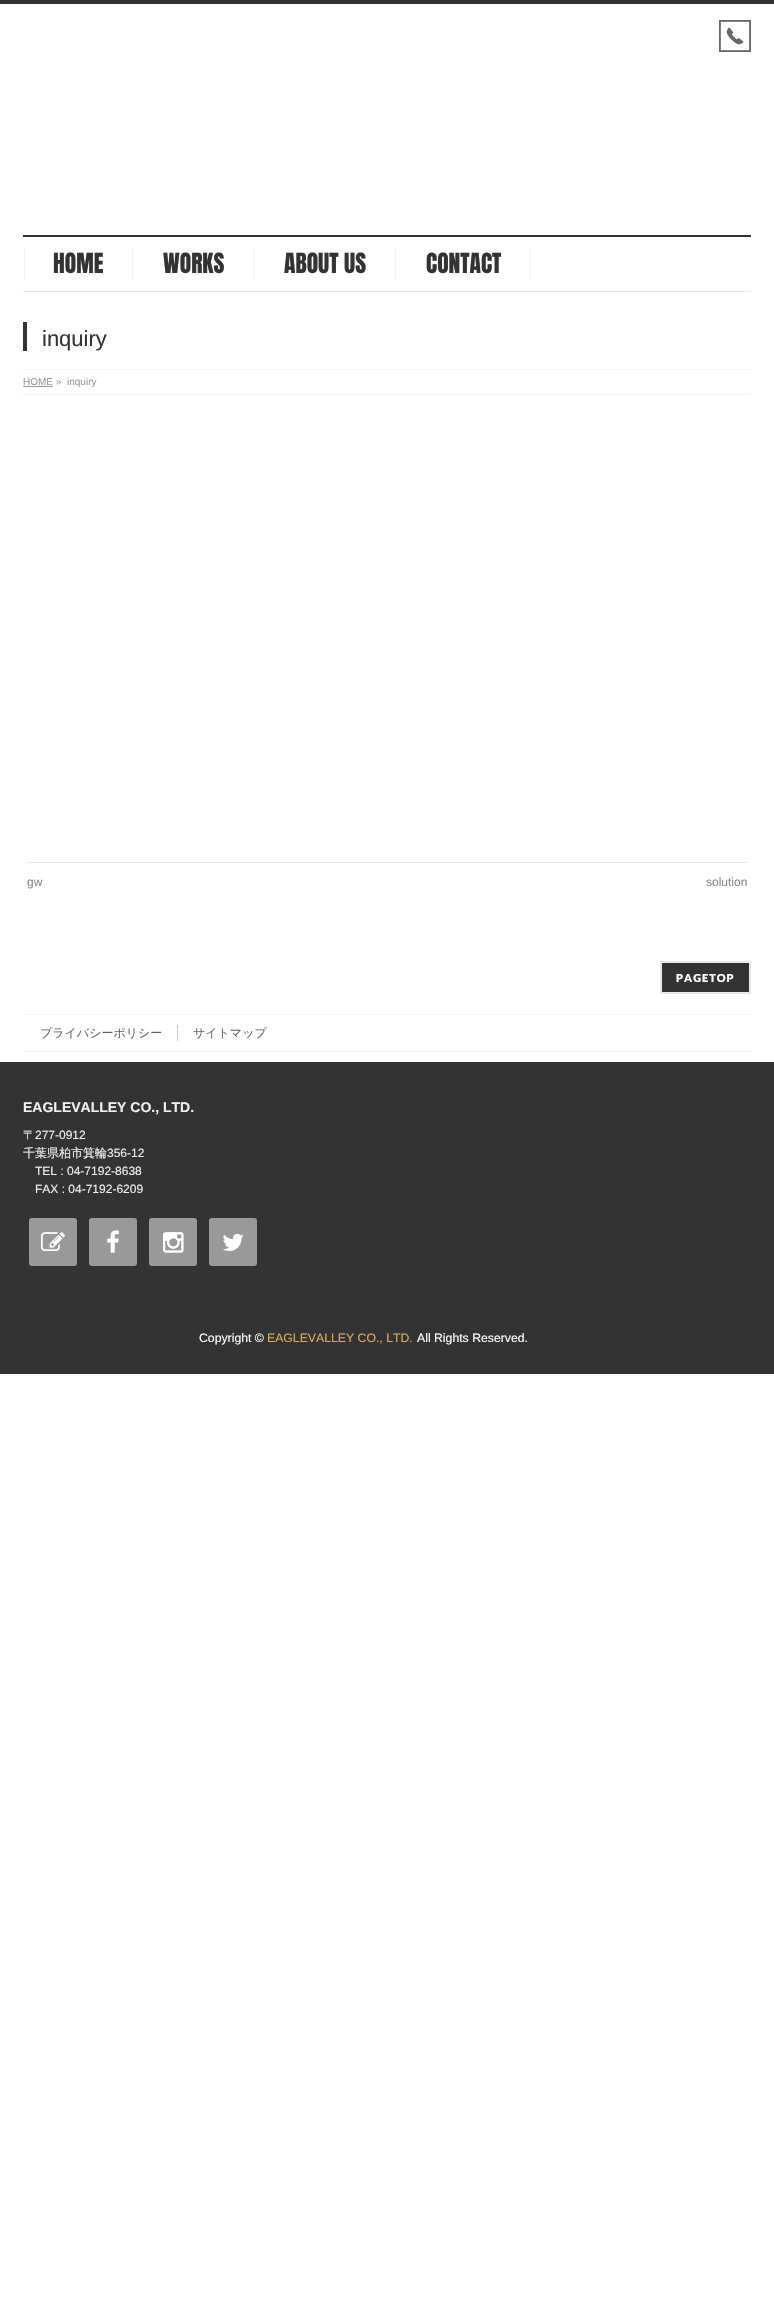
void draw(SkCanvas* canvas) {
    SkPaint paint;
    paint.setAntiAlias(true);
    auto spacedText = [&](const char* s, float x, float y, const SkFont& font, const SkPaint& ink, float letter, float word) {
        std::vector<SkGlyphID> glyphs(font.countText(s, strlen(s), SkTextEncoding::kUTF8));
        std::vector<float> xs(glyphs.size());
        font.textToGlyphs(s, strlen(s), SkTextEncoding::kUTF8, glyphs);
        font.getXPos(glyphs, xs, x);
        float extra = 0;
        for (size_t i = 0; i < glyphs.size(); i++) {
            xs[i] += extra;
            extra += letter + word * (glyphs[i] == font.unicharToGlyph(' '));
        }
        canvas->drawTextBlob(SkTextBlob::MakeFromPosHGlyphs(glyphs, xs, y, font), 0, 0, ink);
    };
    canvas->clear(0xFFFFFFFF);
    paint.setColor(0xFF333333);
    canvas->drawRect(SkRect::MakeXYWH(0, 0, 774, 4), paint);
    canvas->drawImageRect(SkImages::DeferredFromEncodedData(SkData::MakeFromFileName("img1.png")), SkRect::MakeXYWH(719, 20, 32, 32), SkSamplingOptions());
    canvas->drawRect(SkRect::MakeXYWH(23, 235, 728, 2), paint);
    paint.setColor(0xFFE5E5E5);
    canvas->drawRect(SkRect::MakeXYWH(23, 291, 728, 1), paint);
    paint.setStyle(SkPaint::kStroke_Style);
    paint.setStrokeWidth(1);
    paint.setPathEffect(SkDashPathEffect::Make({{1, 1}}, 0));
    canvas->drawPath(SkPathBuilder().moveTo(24.5f, 248).lineTo(24.5f, 280).detach(), paint);
    paint.setPathEffect(nullptr);
    SkFont font1(fontMgr->matchFamilyStyle("Anton", SkFontStyle::Normal()), 23.5f);
    font1.setSubpixel(true);
    paint.setStyle(SkPaint::kFill_Style);
    paint.setColor(0xFF333333);
    canvas->drawString("HOME", 53, 273, font1, paint);
    paint.setStyle(SkPaint::kStroke_Style);
    paint.setColor(0xFFE5E5E5);
    paint.setPathEffect(SkDashPathEffect::Make({{1, 1}}, 0));
    canvas->drawPath(SkPathBuilder().moveTo(132.5f, 248).lineTo(132.5f, 280).detach(), paint);
    paint.setPathEffect(nullptr);
    paint.setStyle(SkPaint::kFill_Style);
    paint.setColor(0xFF333333);
    canvas->drawString("WORKS", 163, 273, font1, paint);
    paint.setStyle(SkPaint::kStroke_Style);
    paint.setColor(0xFFE5E5E5);
    paint.setPathEffect(SkDashPathEffect::Make({{1, 1}}, 0));
    canvas->drawPath(SkPathBuilder().moveTo(253.5f, 248).lineTo(253.5f, 280).detach(), paint);
    paint.setPathEffect(nullptr);
    paint.setStyle(SkPaint::kFill_Style);
    paint.setColor(0xFF333333);
    canvas->drawString("ABOUT US", 284, 273, font1, paint);
    paint.setStyle(SkPaint::kStroke_Style);
    paint.setColor(0xFFE5E5E5);
    paint.setPathEffect(SkDashPathEffect::Make({{1, 1}}, 0));
    canvas->drawPath(SkPathBuilder().moveTo(395.5f, 248).lineTo(395.5f, 280).detach(), paint);
    paint.setPathEffect(nullptr);
    paint.setStyle(SkPaint::kFill_Style);
    paint.setColor(0xFF333333);
    canvas->drawString("CONTACT", 426, 273, font1, paint);
    paint.setStyle(SkPaint::kStroke_Style);
    paint.setColor(0xFFE5E5E5);
    paint.setPathEffect(SkDashPathEffect::Make({{1, 1}}, 0));
    canvas->drawPath(SkPathBuilder().moveTo(530.5f, 248).lineTo(530.5f, 280).detach(), paint);
    paint.setPathEffect(nullptr);
    paint.setStyle(SkPaint::kFill_Style);
    paint.setColor(0xFF333333);
    canvas->drawRect(SkRect::MakeXYWH(23, 322, 4, 29), paint);
    SkFont font2(fontMgr->matchFamilyStyle("Liberation Sans", SkFontStyle::Normal()), 22);
    font2.setSubpixel(true);
    canvas->drawString("inquiry", 42, 346, font2, paint);
    paint.setStyle(SkPaint::kStroke_Style);
    paint.setColor(0xFFE5E5E5);
    paint.setPathEffect(SkDashPathEffect::Make({{1, 1}}, 0));
    canvas->drawPath(SkPathBuilder().moveTo(23, 369.5f).lineTo(751, 369.5f).detach(), paint);
    paint.setPathEffect(nullptr);
    paint.setPathEffect(SkDashPathEffect::Make({{1, 1}}, 0));
    canvas->drawPath(SkPathBuilder().moveTo(23, 394.5f).lineTo(751, 394.5f).detach(), paint);
    paint.setPathEffect(nullptr);
    SkFont font3(fontMgr->matchFamilyStyle("Liberation Sans", SkFontStyle::Normal()), 10);
    font3.setSubpixel(true);
    paint.setStyle(SkPaint::kFill_Style);
    paint.setColor(0xFF999999);
    canvas->drawString("HOME »", 23, 385, font3, paint);
    canvas->drawRect(SkRect::MakeXYWH(23, 386, 30, 1), paint);
    canvas->drawString("inquiry", 67, 385, font3, paint);
    paint.setColor(0xFFE5E5E5);
    canvas->drawRect(SkRect::MakeXYWH(27, 862, 720, 1), paint);
    SkFont font4(fontMgr->matchFamilyStyle("Liberation Sans", SkFontStyle::Normal()), 12);
    font4.setSubpixel(true);
    paint.setColor(0xFF888888);
    canvas->drawString("gw", 27, 886, font4, paint);
    canvas->drawString("solution", 706, 886, font4, paint);
    paint.setColor(0xFF333333);
    canvas->drawRect(SkRect::MakeXYWH(661.5f, 962.5f, 88, 30), paint);
    paint.setStyle(SkPaint::kStroke_Style);
    paint.setColor(0xFFEBEBEB);
    canvas->drawRect(SkRect::MakeXYWH(661.5f, 962.5f, 88, 30), paint);
    paint.setColor(0xFFE5E5E5);
    canvas->drawRect(SkRect::MakeXYWH(660.5f, 961.5f, 90, 32), paint);
    SkFont font5(fontMgr->matchFamilyStyle("Lato", SkFontStyle(900, SkFontStyle::kNormal_Width, SkFontStyle::kUpright_Slant)), 11);
    font5.setSubpixel(true);
    paint.setStyle(SkPaint::kFill_Style);
    paint.setColor(0xFFFFFFFF);
    spacedText("PAGETOP", 676, 982, font5, paint, 1, 0);
    paint.setStyle(SkPaint::kStroke_Style);
    paint.setColor(0xFFE5E5E5);
    paint.setPathEffect(SkDashPathEffect::Make({{1, 1}}, 0));
    canvas->drawPath(SkPathBuilder().moveTo(25, 1014.5f).lineTo(753, 1014.5f).detach(), paint);
    paint.setPathEffect(nullptr);
    paint.setPathEffect(SkDashPathEffect::Make({{1, 1}}, 0));
    canvas->drawPath(SkPathBuilder().moveTo(25, 1051.5f).lineTo(753, 1051.5f).detach(), paint);
    paint.setPathEffect(nullptr);
    paint.setStyle(SkPaint::kFill_Style);
    paint.setColor(0xFFCCCCCC);
    canvas->drawRect(SkRect::MakeXYWH(177, 1025, 1, 16), paint);
    SkFont font6(fontMgr->matchFamilyStyle("WenQuanYi Zen Hei", SkFontStyle(500, SkFontStyle::kNormal_Width, SkFontStyle::kUpright_Slant)), 12);
    font6.setSubpixel(true);
    paint.setColor(0xFF666666);
    canvas->drawString("プライバシーポリシー", 40, 1037, font6, paint);
    canvas->drawString("サイトマップ", 193, 1037, font6, paint);
    paint.setColor(0xFF333333);
    canvas->drawRect(SkRect::MakeXYWH(0, 1062, 774, 312), paint);
    SkFont font7(fontMgr->matchFamilyStyle("Liberation Sans", SkFontStyle::Bold()), 14);
    font7.setSubpixel(true);
    paint.setColor(0xFFEFEFEF);
    canvas->drawString("EAGLEVALLEY CO., LTD.", 23, 1112, font7, paint);
    canvas->drawString("〒", 23, 1139, font6, paint);
    canvas->drawString("277-0912", 35, 1139, font4, paint);
    canvas->drawString("千葉県柏市箕輪", 23, 1157, font6, paint);
    canvas->drawString("356-12", 107, 1157, font4, paint);
    canvas->drawString("TEL : 04-7192-8638", 35, 1175, font4, paint);
    canvas->drawString("FAX : 04-7192-6209", 35, 1193, font4, paint);
    paint.setColor(0xFF999999);
    canvas->drawRoundRect(SkRect::MakeXYWH(29, 1218, 48, 48), 3, 3, paint);
    canvas->drawImageRect(SkImages::DeferredFromEncodedData(SkData::MakeFromFileName("img2.png")), SkRect::MakeXYWH(41, 1232, 24, 19), SkSamplingOptions());
    canvas->drawRoundRect(SkRect::MakeXYWH(89, 1218, 48, 48), 3, 3, paint);
    canvas->drawImageRect(SkImages::DeferredFromEncodedData(SkData::MakeFromFileName("img3.png")), SkRect::MakeXYWH(107, 1230, 12, 23), SkSamplingOptions());
    canvas->drawRoundRect(SkRect::MakeXYWH(149, 1218, 48, 48), 3, 3, paint);
    canvas->drawImageRect(SkImages::DeferredFromEncodedData(SkData::MakeFromFileName("img4.png")), SkRect::MakeXYWH(163, 1232, 21, 21), SkSamplingOptions());
    canvas->drawRoundRect(SkRect::MakeXYWH(209, 1218, 48, 48), 3, 3, paint);
    canvas->drawImageRect(SkImages::DeferredFromEncodedData(SkData::MakeFromFileName("img5.png")), SkRect::MakeXYWH(222, 1233, 22, 18), SkSamplingOptions());
    SkFont font8(fontMgr->matchFamilyStyle("Liberation Sans", SkFontStyle::Normal()), 12.25f);
    font8.setSubpixel(true);
    paint.setColor(0xFFFFFFFF);
    canvas->drawString("Copyright ©", 199, 1342, font8, paint);
    paint.setColor(0xFFDDAB5F);
    canvas->drawString("EAGLEVALLEY CO., LTD.", 267, 1342, font8, paint);
    paint.setColor(0xFFFFFFFF);
    canvas->drawString("All Rights Reserved.", 417, 1342, font8, paint);
}
